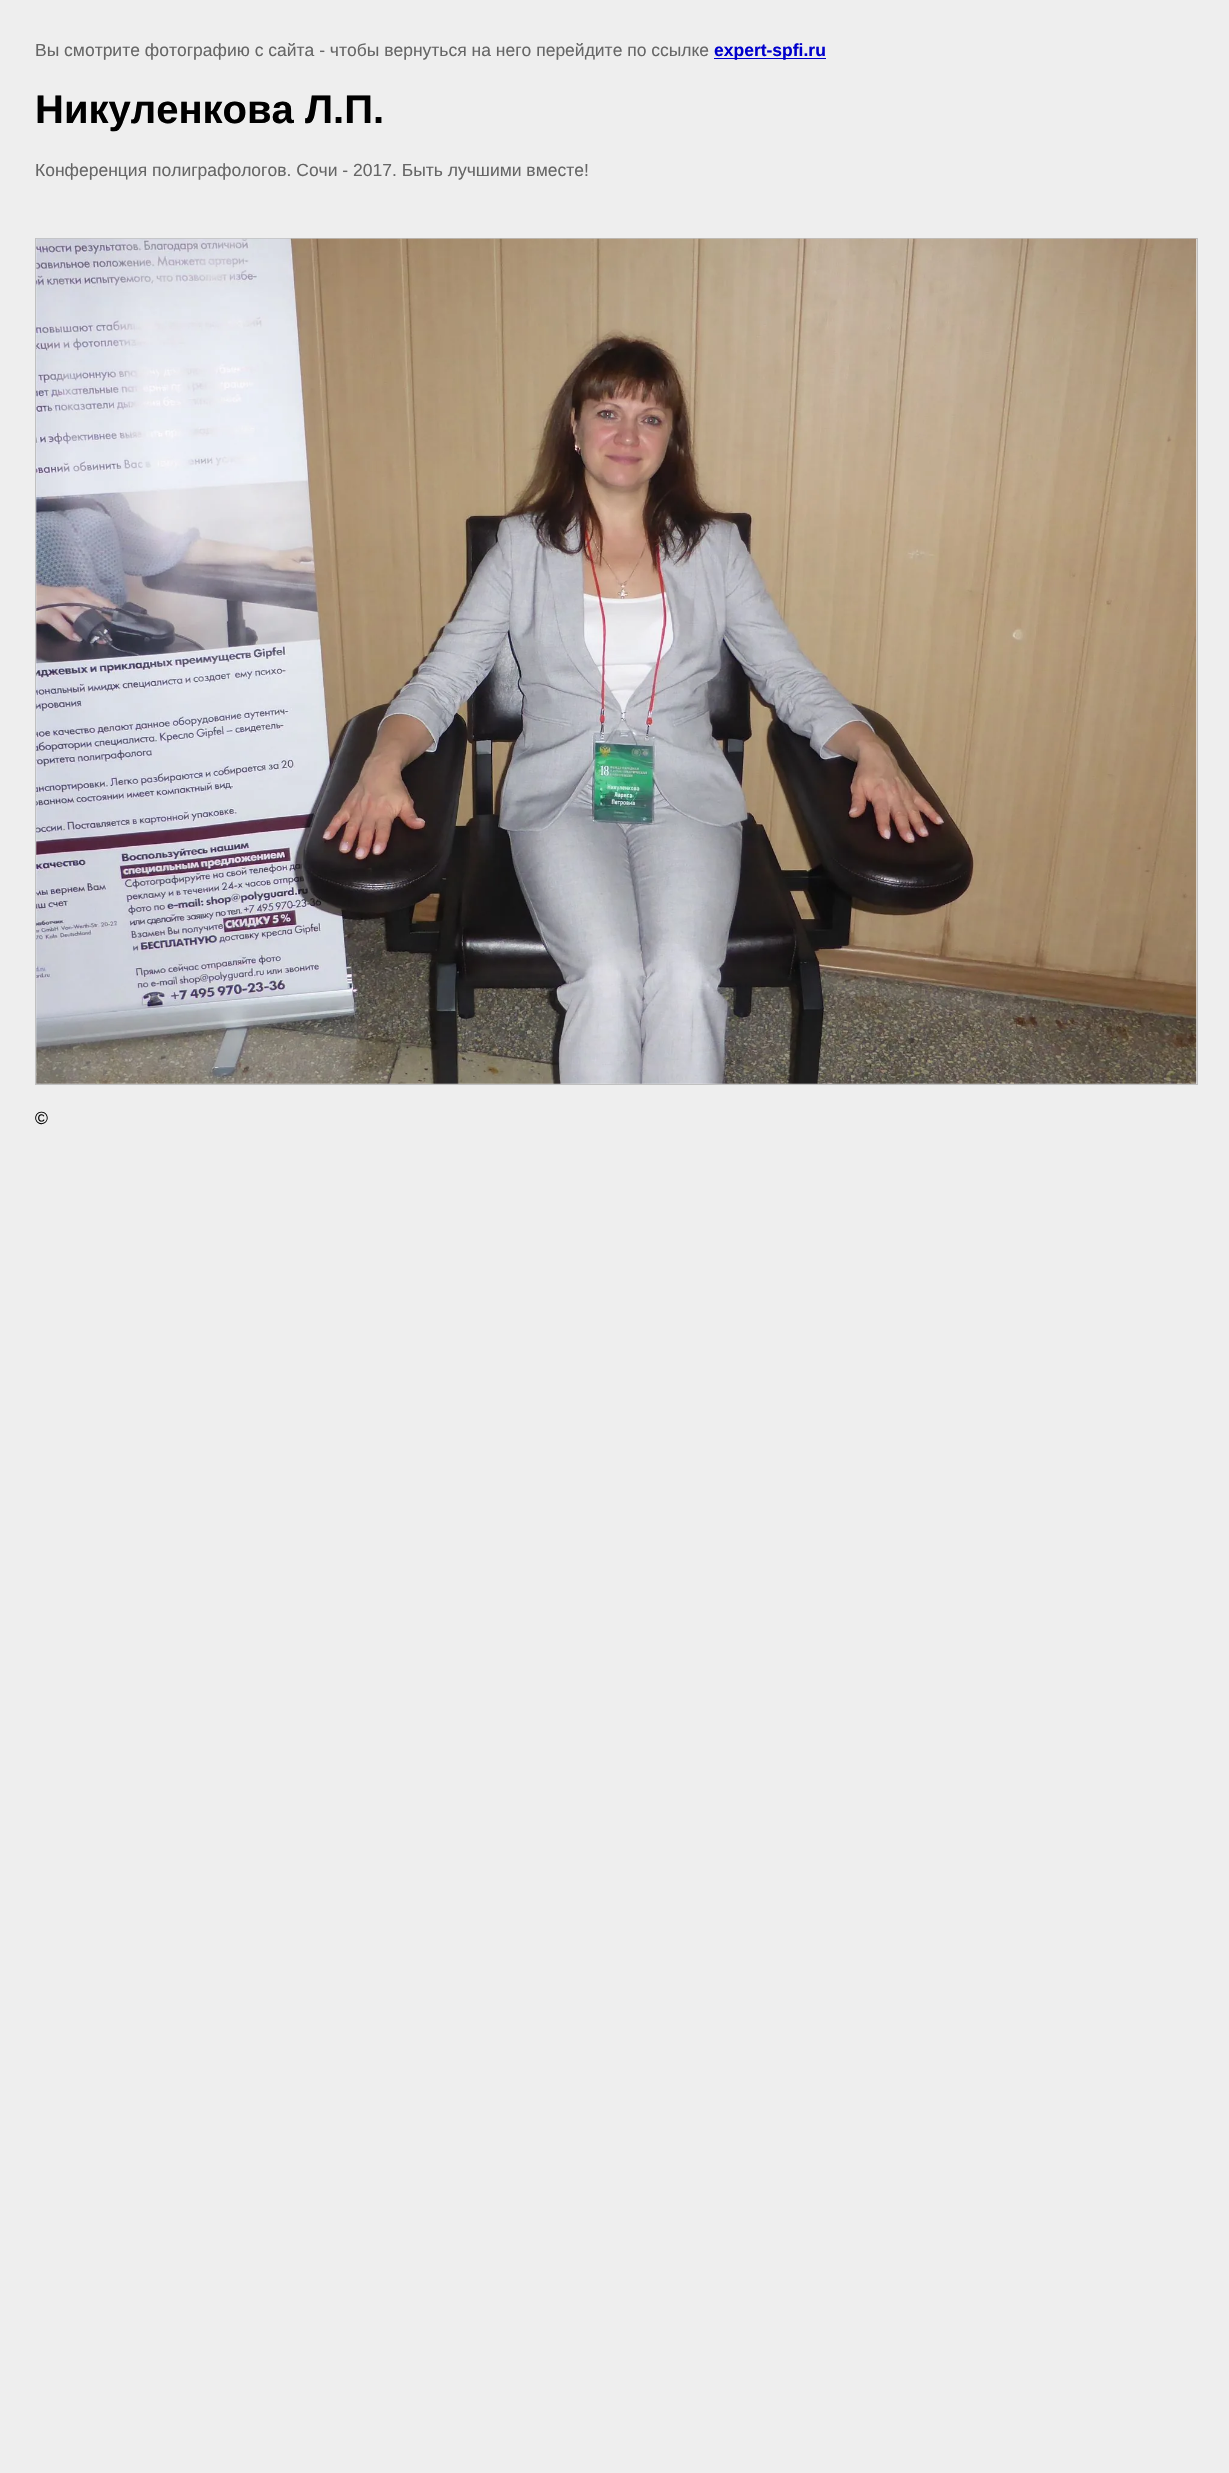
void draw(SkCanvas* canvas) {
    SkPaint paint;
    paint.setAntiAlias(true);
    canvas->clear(0xFFEEEEEE);
    SkFont font1(fontMgr->matchFamilyStyle("Liberation Sans", SkFontStyle::Normal()), 17.5f);
    font1.setSubpixel(true);
    paint.setColor(0xFF666666);
    canvas->drawString("Вы смотрите фотографию с сайта - чтобы вернуться на него перейдите по ссылке", 35, 56, font1, paint);
    paint.setColor(0xFF0000CC);
    canvas->drawRect(SkRect::MakeXYWH(714, 58, 112, 1), paint);
    SkFont font2(fontMgr->matchFamilyStyle("Liberation Sans", SkFontStyle::Bold()), 17.5f);
    font2.setSubpixel(true);
    canvas->drawString("expert-spfi.ru", 714, 56, font2, paint);
    SkFont font3(fontMgr->matchFamilyStyle("Liberation Sans", SkFontStyle::Bold()), 40);
    font3.setSubpixel(true);
    paint.setColor(0xFF000000);
    canvas->drawString("Никуленкова Л.П.", 35, 123, font3, paint);
    paint.setColor(0xFF666666);
    canvas->drawString("Конференция полиграфологов. Сочи - 2017. Быть лучшими вместе!", 35, 176, font1, paint);
    paint.setStyle(SkPaint::kStroke_Style);
    paint.setStrokeWidth(1);
    paint.setColor(0xFFC0C0C0);
    canvas->drawRect(SkRect::MakeXYWH(35.5f, 238.5f, 1162, 846), paint);
    canvas->drawImageRect(SkImages::DeferredFromEncodedData(SkData::MakeFromFileName("img1.png")), SkRect::MakeXYWH(36, 238, 1161, 846), SkSamplingOptions());
    paint.setStyle(SkPaint::kFill_Style);
    paint.setColor(0xFF000000);
    canvas->drawString("©", 35, 1124, font1, paint);
}
